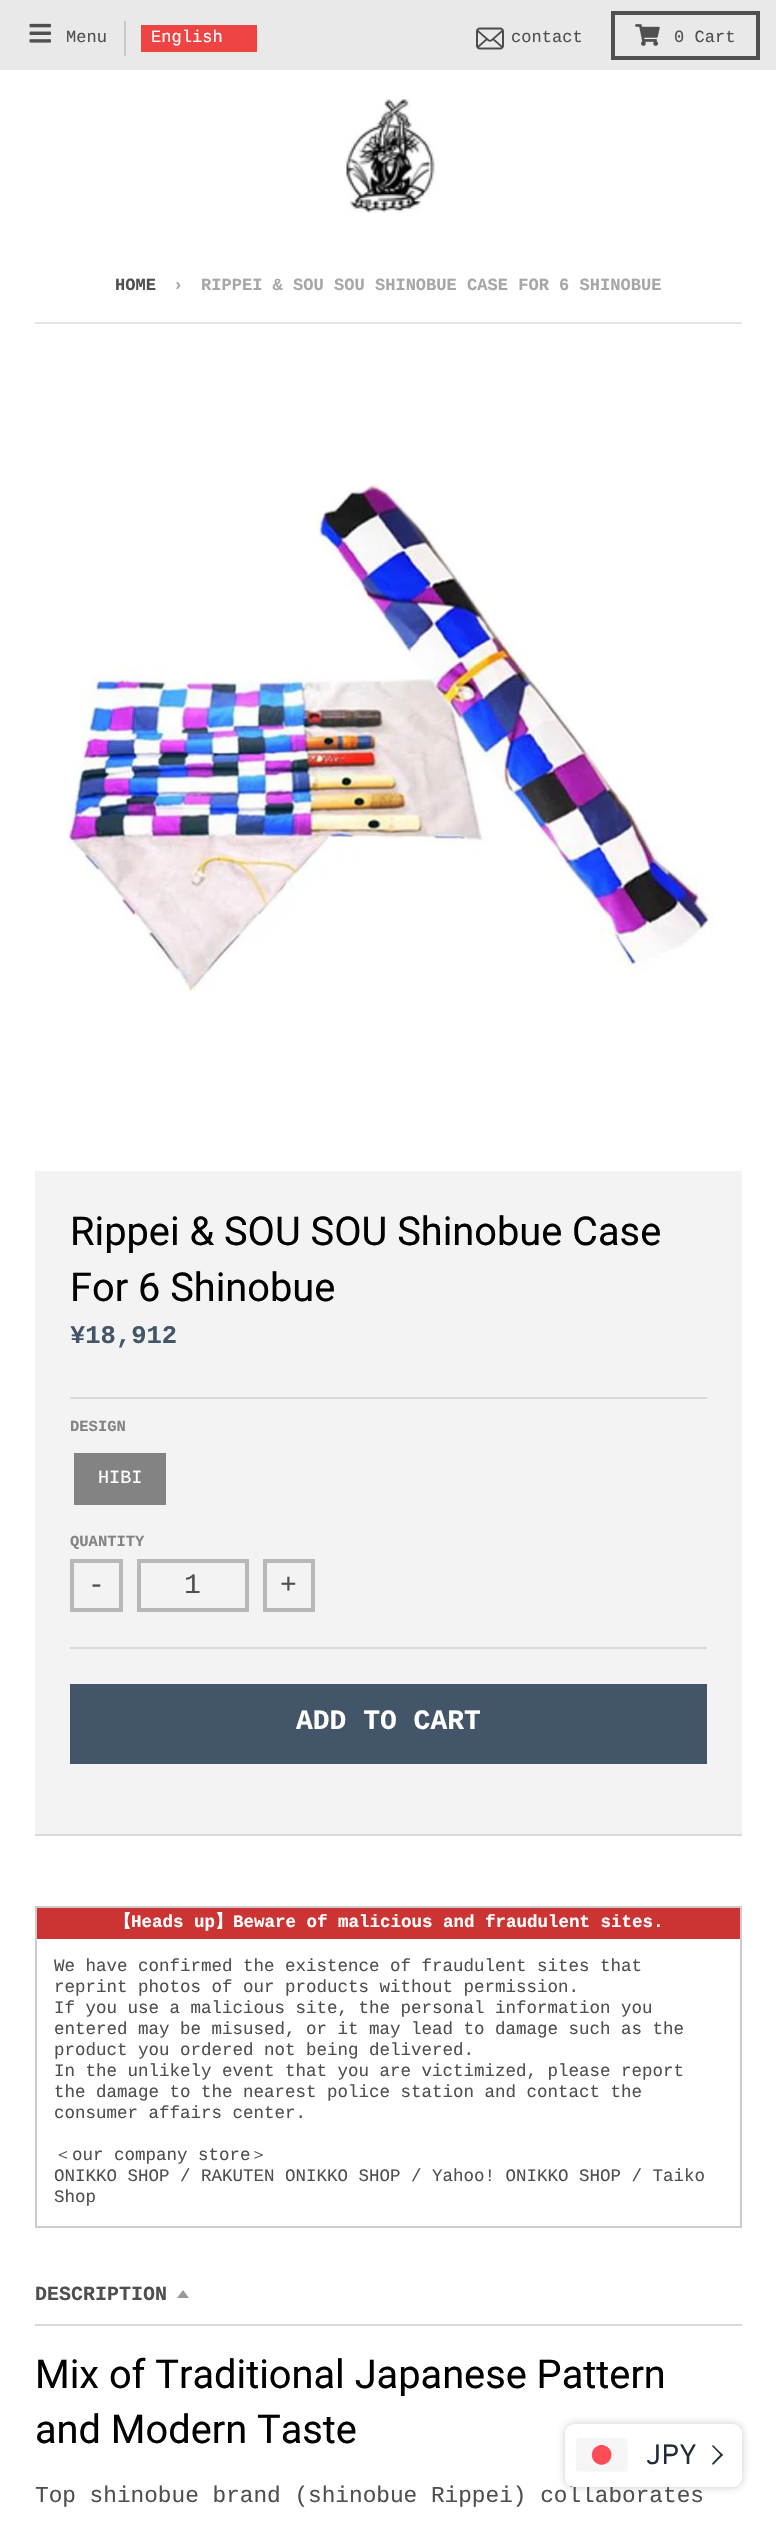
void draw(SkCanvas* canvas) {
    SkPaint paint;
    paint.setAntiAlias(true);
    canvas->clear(0xFFFFFFFF);
    paint.setColor(0xFFE9E9E9);
    canvas->drawRect(SkRect::MakeXYWH(0, 0, 776, 70), paint);
    canvas->drawImageRect(SkImages::DeferredFromEncodedData(SkData::MakeFromFileName("img1.png")), SkRect::MakeXYWH(29, 23, 22, 20), SkSamplingOptions());
    SkFont font1(fontMgr->matchFamilyStyle("Liberation Mono", SkFontStyle::Normal()), 17.05f);
    font1.setSubpixel(true);
    paint.setColor(0xFF4F4F4F);
    canvas->drawString("Menu", 66, 42, font1, paint);
    paint.setColor(0xFFCACACA);
    canvas->drawRect(SkRect::MakeXYWH(124, 21, 2, 35), paint);
    paint.setColor(0xFFEE4444);
    canvas->drawRect(SkRect::MakeXYWH(141, 25, 116, 27), paint);
    paint.setColor(0xFFFFFFFF);
    canvas->drawString("English", 151, 42, font1, paint);
    canvas->drawImageRect(SkImages::DeferredFromEncodedData(SkData::MakeFromFileName("img2.png")), SkRect::MakeXYWH(476, 27, 28, 23), SkSamplingOptions());
    paint.setColor(0xFF4F4F4F);
    canvas->drawString("contact", 511, 42, font1, paint);
    paint.setStyle(SkPaint::kStroke_Style);
    paint.setStrokeWidth(4);
    paint.setColor(0xFF505050);
    canvas->drawRect(SkRect::MakeXYWH(613, 13, 145, 45), paint);
    canvas->drawImageRect(SkImages::DeferredFromEncodedData(SkData::MakeFromFileName("img3.png")), SkRect::MakeXYWH(635, 24, 25, 22), SkSamplingOptions());
    paint.setStyle(SkPaint::kFill_Style);
    paint.setColor(0xFF4F4F4F);
    canvas->drawString("0 Cart", 674, 42, font1, paint);
    canvas->drawImageRect(SkImages::DeferredFromEncodedData(SkData::MakeFromFileName("img4.png")), SkRect::MakeXYWH(345, 99, 94, 114), SkSamplingOptions());
    SkFont font2(fontMgr->matchFamilyStyle("Liberation Mono", SkFontStyle::Bold()), 17.05f);
    font2.setSubpixel(true);
    canvas->drawString("HOME", 115, 290, font2, paint);
    paint.setColor(0xFFA7A7A7);
    canvas->drawString("›", 173, 290, font2, paint);
    canvas->drawString("RIPPEI & SOU SOU SHINOBUE CASE FOR 6 SHINOBUE", 201, 290, font2, paint);
    paint.setColor(0xFFE5E5E5);
    canvas->drawRect(SkRect::MakeXYWH(35, 322, 707, 2), paint);
    canvas->drawImageRect(SkImages::DeferredFromEncodedData(SkData::MakeFromFileName("img5.png")), SkRect::MakeXYWH(67, 484, 647, 507), SkSamplingOptions());
    paint.setColor(0xFFF3F3F3);
    canvas->drawRect(SkRect::MakeXYWH(35, 1171, 707, 663), paint);
    paint.setColor(0xFFDADADA);
    canvas->drawRect(SkRect::MakeXYWH(35, 1834, 707, 2), paint);
    SkFont font3(fontMgr->matchFamilyStyle("Roboto", SkFontStyle::Normal()), 39.75f);
    font3.setSubpixel(true);
    paint.setColor(0xFF000000);
    canvas->drawString("Rippei & SOU SOU Shinobue Case", 70, 1245, font3, paint);
    canvas->drawString("For 6 Shinobue", 70, 1301, font3, paint);
    paint.setColor(0xFFDADADA);
    canvas->drawRect(SkRect::MakeXYWH(70, 1397, 637, 2), paint);
    SkFont font4(fontMgr->matchFamilyStyle("Liberation Mono", SkFontStyle::Bold()), 25.5f);
    font4.setSubpixel(true);
    paint.setColor(0xFF435568);
    canvas->drawString("¥18,912", 70, 1343, font4, paint);
    paint.setColor(0xFFDADADA);
    canvas->drawRect(SkRect::MakeXYWH(70, 1647, 637, 2), paint);
    SkFont font5(fontMgr->matchFamilyStyle("Liberation Mono", SkFontStyle::Bold()), 15.5f);
    font5.setSubpixel(true);
    paint.setColor(0xFF838383);
    canvas->drawString("DESIGN", 70, 1431, font5, paint);
    canvas->drawRect(SkRect::MakeXYWH(74, 1453, 92, 52), paint);
    SkFont font6(fontMgr->matchFamilyStyle("Liberation Mono", SkFontStyle::Normal()), 18.5f);
    font6.setSubpixel(true);
    paint.setColor(0xFFFFFFFF);
    canvas->drawString("HIBI", 98, 1483, font6, paint);
    paint.setColor(0xFF838383);
    canvas->drawString("QUANTITY", 70, 1546, font5, paint);
    paint.setStyle(SkPaint::kStroke_Style);
    paint.setColor(0xFFB8B8B8);
    canvas->drawRect(SkRect::MakeXYWH(72, 1561, 49, 49), paint);
    SkFont font7(fontMgr->matchFamilyStyle("Liberation Mono", SkFontStyle::Normal()), 28);
    font7.setSubpixel(true);
    paint.setStyle(SkPaint::kFill_Style);
    paint.setColor(0xFF4F4F4F);
    canvas->drawString("-", 88, 1593, font7, paint);
    paint.setStyle(SkPaint::kStroke_Style);
    paint.setColor(0xFFB8B8B8);
    canvas->drawRect(SkRect::MakeXYWH(139, 1561, 108, 49), paint);
    paint.setStyle(SkPaint::kFill_Style);
    paint.setColor(0xFF4F4F4F);
    canvas->drawString("1", 184, 1593, font7, paint);
    paint.setStyle(SkPaint::kStroke_Style);
    paint.setColor(0xFFB8B8B8);
    canvas->drawRect(SkRect::MakeXYWH(265, 1561, 48, 49), paint);
    paint.setStyle(SkPaint::kFill_Style);
    paint.setColor(0xFF4F4F4F);
    canvas->drawString("+", 280, 1593, font7, paint);
    paint.setColor(0xFF435568);
    canvas->drawRect(SkRect::MakeXYWH(70, 1684, 637, 80), paint);
    SkFont font8(fontMgr->matchFamilyStyle("Liberation Mono", SkFontStyle::Bold()), 28);
    font8.setSubpixel(true);
    paint.setColor(0xFFFFFFFF);
    canvas->drawString("ADD TO CART", 296, 1729, font8, paint);
    paint.setColor(0xFFCCCCCC);
    canvas->drawRect(SkRect::MakeXYWH(35, 1906, 707, 2), paint);
    canvas->drawRect(SkRect::MakeXYWH(740, 1906, 2, 322), paint);
    canvas->drawRect(SkRect::MakeXYWH(35, 2226, 707, 2), paint);
    canvas->drawRect(SkRect::MakeXYWH(35, 1906, 2, 322), paint);
    paint.setColor(0xFFCC3333);
    canvas->drawRect(SkRect::MakeXYWH(37, 1908, 703, 31), paint);
    SkFont font9(fontMgr->matchFamilyStyle("WenQuanYi Zen Hei", SkFontStyle::Bold()), 17.5f);
    font9.setSubpixel(true);
    paint.setColor(0xFFFFFFFF);
    canvas->drawString("【", 114, 1927, font9, paint);
    SkFont font10(fontMgr->matchFamilyStyle("Liberation Mono", SkFontStyle::Bold()), 17.5f);
    font10.setSubpixel(true);
    canvas->drawString("Heads up", 131, 1927, font10, paint);
    canvas->drawString("】", 215, 1927, font9, paint);
    canvas->drawString("Beware of malicious and fraudulent sites.", 233, 1927, font10, paint);
    SkFont font11(fontMgr->matchFamilyStyle("Liberation Mono", SkFontStyle::Normal()), 17.5f);
    font11.setSubpixel(true);
    paint.setColor(0xFF4F4F4F);
    canvas->drawString("We have confirmed the existence of fraudulent sites that", 54, 1971, font11, paint);
    canvas->drawString("reprint photos of our products without permission.", 54, 1992, font11, paint);
    canvas->drawString("If you use a malicious site, the personal information you", 54, 2013, font11, paint);
    canvas->drawString("entered may be misused, or it may lead to damage such as the", 54, 2034, font11, paint);
    canvas->drawString("product you ordered not being delivered.", 54, 2055, font11, paint);
    canvas->drawString("In the unlikely event that you are victimized, please report", 54, 2076, font11, paint);
    canvas->drawString("the damage to the nearest police station and contact the", 54, 2097, font11, paint);
    canvas->drawString("consumer affairs center.", 54, 2118, font11, paint);
    SkFont font12(fontMgr->matchFamilyStyle("WenQuanYi Zen Hei", SkFontStyle(500, SkFontStyle::kNormal_Width, SkFontStyle::kUpright_Slant)), 17.5f);
    font12.setSubpixel(true);
    canvas->drawString("＜", 54, 2160, font12, paint);
    canvas->drawString("our company store", 72, 2160, font11, paint);
    canvas->drawString("＞", 250, 2160, font12, paint);
    canvas->drawString("ONIKKO SHOP / RAKUTEN ONIKKO SHOP / Yahoo! ONIKKO SHOP / Taiko", 54, 2181, font11, paint);
    canvas->drawString("Shop", 54, 2202, font11, paint);
    paint.setColor(0xFFDADADA);
    canvas->drawRect(SkRect::MakeXYWH(35, 2324, 707, 2), paint);
    SkFont font13(fontMgr->matchFamilyStyle("Liberation Mono", SkFontStyle::Bold()), 20);
    font13.setSubpixel(true);
    paint.setColor(0xFF4F4F4F);
    canvas->drawString("DESCRIPTION", 35, 2300, font13, paint);
    paint.setColor(0xFF999999);
    canvas->drawPath(SkPathBuilder().moveTo(177, 2298).lineTo(183, 2290).lineTo(189, 2298).close().detach(), paint);
    paint.setColor(0xFF000000);
    canvas->drawString("Mix of Traditional Japanese Pattern", 35, 2388, font3, paint);
    canvas->drawString("and Modern Taste", 35, 2443, font3, paint);
    SkFont font14(fontMgr->matchFamilyStyle("Liberation Mono", SkFontStyle::Normal()), 22.75f);
    font14.setSubpixel(true);
    paint.setColor(0xFF4F4F4F);
    canvas->drawString("Top shinobue brand (shinobue Rippei) collaborates", 35, 2502, font14, paint);
    paint.setColor(0x40212B36);
    paint.setMaskFilter(SkMaskFilter::MakeBlur(kNormal_SkBlurStyle, 4.5f));
    canvas->drawRoundRect(SkRect::MakeXYWH(565, 2424, 177, 63), 9, 9, paint);
    paint.setMaskFilter(nullptr);
    paint.setColor(0xFFFFFFFF);
    canvas->drawRoundRect(SkRect::MakeXYWH(565, 2424, 177, 63), 9, 9, paint);
    canvas->drawImageRect(SkImages::DeferredFromEncodedData(SkData::MakeFromFileName("img6.png")), SkRect::MakeXYWH(575, 2437, 53, 35), SkSamplingOptions());
    SkFont font15(fontMgr->matchFamilyStyle("Overpass", SkFontStyle::Normal()), 28);
    font15.setSubpixel(true);
    paint.setColor(0xFF212B36);
    canvas->drawString("JPY", 646, 2464, font15, paint);
    canvas->drawPath(SkPathBuilder().moveTo(712, 2446).lineTo(713, 2445).lineTo(723, 2455).lineTo(721.5f, 2456).close().detach(), paint);
    canvas->drawPath(SkPathBuilder().moveTo(712, 2463.5f).lineTo(721.5f, 2453.5f).lineTo(723, 2455).lineTo(713, 2465).close().detach(), paint);
}
